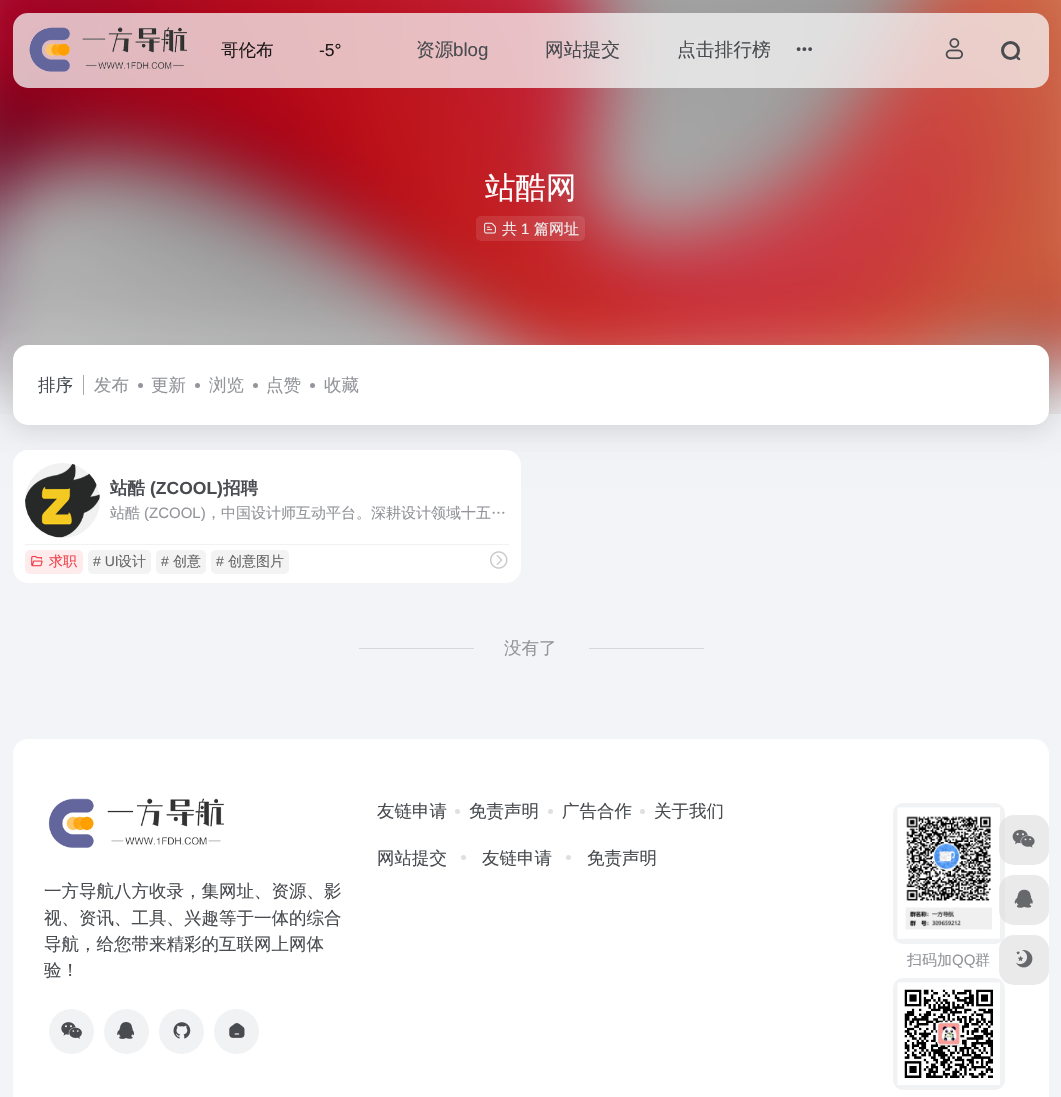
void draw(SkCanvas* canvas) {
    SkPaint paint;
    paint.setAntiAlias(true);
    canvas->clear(0xFFF2F4F7);
    canvas->drawImageRect(SkImages::DeferredFromEncodedData(SkData::MakeFromFileName("img4.png")), SkRect::MakeXYWH(0, 0, 1061, 414), SkSamplingOptions());
    paint.setColor(0x33000000);
    paint.setMaskFilter(SkMaskFilter::MakeBlur(kNormal_SkBlurStyle, 37.5f));
    canvas->drawRect(SkRect::MakeXYWH(-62, -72, 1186, 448), paint);
    paint.setMaskFilter(nullptr);
    paint.setColor(0xBFF5F5F5);
    canvas->drawRoundRect(SkRect::MakeXYWH(13, 13, 1036, 75), 15, 15, paint);
    canvas->drawImageRect(SkImages::DeferredFromEncodedData(SkData::MakeFromFileName("img1.png")), SkRect::MakeXYWH(29, 27, 159, 45), SkSamplingOptions());
    SkFont font1(fontMgr->matchFamilyStyle("WenQuanYi Zen Hei", SkFontStyle(500, SkFontStyle::kNormal_Width, SkFontStyle::kUpright_Slant)), 17.5f);
    font1.setSubpixel(true);
    paint.setColor(0xFF1E1819);
    canvas->drawString("哥伦布", 221, 56, font1, paint);
    SkFont font2(fontMgr->matchFamilyStyle("Liberation Sans", SkFontStyle::Normal()), 17.5f);
    font2.setSubpixel(true);
    canvas->drawString("-5°", 319, 56, font2, paint);
    SkFont font3(fontMgr->matchFamilyStyle("WenQuanYi Zen Hei", SkFontStyle(500, SkFontStyle::kNormal_Width, SkFontStyle::kUpright_Slant)), 18.75f);
    font3.setSubpixel(true);
    paint.setColor(0xFF484B4F);
    canvas->drawString("资源", 416, 56, font3, paint);
    SkFont font4(fontMgr->matchFamilyStyle("Liberation Sans", SkFontStyle::Normal()), 18.75f);
    font4.setSubpixel(true);
    canvas->drawString("blog", 453, 56, font4, paint);
    canvas->drawString("网站提交", 545, 56, font3, paint);
    canvas->drawString("点击排行榜", 677, 56, font3, paint);
    canvas->drawImageRect(SkImages::DeferredFromEncodedData(SkData::MakeFromFileName("img2.png")), SkRect::MakeXYWH(796, 47, 16, 5), SkSamplingOptions());
    canvas->drawImageRect(SkImages::DeferredFromEncodedData(SkData::MakeFromFileName("img3.png")), SkRect::MakeXYWH(945, 38, 18, 22), SkSamplingOptions());
    paint.setStyle(SkPaint::kStroke_Style);
    paint.setStrokeWidth(3);
    canvas->drawCircle(1010.5f, 50.5f, 8, paint);
    paint.setStyle(SkPaint::kFill_Style);
    canvas->drawPath(SkPathBuilder().moveTo(1018, 56.5f).lineTo(1020, 58.5f).cubicTo(1021, 60.5f, 1019, 60.5f, 1017.5f, 59.5f).lineTo(1016, 57.5f).cubicTo(1015.5f, 56.5f, 1017, 55.5f, 1018, 56.5f).close().detach(), paint);
    SkFont font5(fontMgr->matchFamilyStyle("WenQuanYi Zen Hei", SkFontStyle(500, SkFontStyle::kNormal_Width, SkFontStyle::kUpright_Slant)), 30.5f);
    font5.setSubpixel(true);
    paint.setColor(0xFFFFFFFF);
    canvas->drawString("站酷网", 485, 198, font5, paint);
    paint.setColor(0x1AFFFFFF);
    canvas->drawRoundRect(SkRect::MakeXYWH(476, 216, 109, 25), 5, 5, paint);
    canvas->drawImageRect(SkImages::DeferredFromEncodedData(SkData::MakeFromFileName("img5.png")), SkRect::MakeXYWH(484, 222, 12, 12), SkSamplingOptions());
    SkFont font6(fontMgr->matchFamilyStyle("WenQuanYi Zen Hei", SkFontStyle(500, SkFontStyle::kNormal_Width, SkFontStyle::kUpright_Slant)), 15);
    font6.setSubpixel(true);
    paint.setColor(0xFFEEEEEE);
    canvas->drawString("共", 502, 234, font6, paint);
    SkFont font7(fontMgr->matchFamilyStyle("Liberation Sans", SkFontStyle::Normal()), 15);
    font7.setSubpixel(true);
    canvas->drawString("1", 521, 234, font7, paint);
    canvas->drawString("篇网址", 534, 234, font6, paint);
    paint.setColor(0x1A000000);
    paint.setMaskFilter(SkMaskFilter::MakeBlur(kNormal_SkBlurStyle, 12.5f));
    canvas->drawRoundRect(SkRect::MakeXYWH(13, 351, 1036, 80), 15, 15, paint);
    paint.setMaskFilter(nullptr);
    paint.setColor(0xFFFFFFFF);
    canvas->drawRoundRect(SkRect::MakeXYWH(13, 345, 1036, 80), 15, 15, paint);
    paint.setColor(0xFF484B4F);
    canvas->drawString("排序", 38, 391, font1, paint);
    paint.setColor(0xFFA9AAAE);
    canvas->drawRect(SkRect::MakeXYWH(83, 375, 1, 20), paint);
    paint.setColor(0xFF93959A);
    canvas->drawString("发布", 94, 391, font1, paint);
    canvas->drawCircle(140.5f, 385.5f, 2.5f, paint);
    canvas->drawString("更新", 151, 391, font1, paint);
    canvas->drawCircle(197.5f, 385.5f, 2.5f, paint);
    canvas->drawString("浏览", 209, 391, font1, paint);
    canvas->drawCircle(255.5f, 385.5f, 2.5f, paint);
    canvas->drawString("点赞", 266, 391, font1, paint);
    canvas->drawCircle(312.5f, 385.5f, 2.5f, paint);
    canvas->drawString("收藏", 324, 391, font1, paint);
    paint.setColor(0xFFFFFFFF);
    canvas->drawRoundRect(SkRect::MakeXYWH(13, 450, 508, 133), 15, 15, paint);
    paint.setColor(0xFFF1F1F1);
    canvas->drawCircle(62.5f, 500.5f, 37.5f, paint);
    canvas->drawImageRect(SkImages::DeferredFromEncodedData(SkData::MakeFromFileName("img6.png")), SkRect::MakeXYWH(25, 464, 75, 74), SkSamplingOptions());
    SkFont font8(fontMgr->matchFamilyStyle("WenQuanYi Zen Hei", SkFontStyle::Bold()), 17.5f);
    font8.setSubpixel(true);
    paint.setColor(0xFF484B4F);
    canvas->drawString("站酷", 110, 494, font8, paint);
    SkFont font9(fontMgr->matchFamilyStyle("Liberation Sans", SkFontStyle::Bold()), 17.5f);
    font9.setSubpixel(true);
    canvas->drawString("(ZCOOL)", 150, 494, font9, paint);
    canvas->drawString("招聘", 223, 494, font8, paint);
    paint.setColor(0xFF93959A);
    canvas->drawString("站酷", 110, 518, font6, paint);
    canvas->drawString("(ZCOOL)", 144, 518, font7, paint);
    canvas->drawString("，中国设计师互动平台。深耕设计领域十五…", 206, 518, font6, paint);
    paint.setColor(0xFFF1F1F1);
    canvas->drawRect(SkRect::MakeXYWH(25, 544, 484, 1), paint);
    paint.setColor(0xFFFEECED);
    canvas->drawRoundRect(SkRect::MakeXYWH(25, 550, 58, 24), 5, 5, paint);
    canvas->drawImageRect(SkImages::DeferredFromEncodedData(SkData::MakeFromFileName("img7.png")), SkRect::MakeXYWH(31, 555, 12, 12), SkSamplingOptions());
    SkFont font10(fontMgr->matchFamilyStyle("WenQuanYi Zen Hei", SkFontStyle(500, SkFontStyle::kNormal_Width, SkFontStyle::kUpright_Slant)), 14);
    font10.setSubpixel(true);
    paint.setColor(0xFFF1404B);
    canvas->drawString("求职", 49, 566, font10, paint);
    paint.setColor(0xFFF3F3F3);
    canvas->drawRoundRect(SkRect::MakeXYWH(88, 550, 63, 24), 5, 5, paint);
    SkFont font11(fontMgr->matchFamilyStyle("Liberation Sans", SkFontStyle::Normal()), 14);
    font11.setSubpixel(true);
    paint.setColor(0xFF666666);
    canvas->drawString("# UI", 93, 566, font11, paint);
    canvas->drawString("设计", 118, 566, font10, paint);
    paint.setColor(0xFFF3F3F3);
    canvas->drawRoundRect(SkRect::MakeXYWH(156, 550, 50, 24), 5, 5, paint);
    paint.setColor(0xFF666666);
    canvas->drawString("#", 161, 566, font11, paint);
    canvas->drawString("创意", 173, 566, font10, paint);
    paint.setColor(0xFFF3F3F3);
    canvas->drawRoundRect(SkRect::MakeXYWH(211, 550, 78, 24), 5, 5, paint);
    paint.setColor(0xFF666666);
    canvas->drawString("#", 216, 566, font11, paint);
    canvas->drawString("创意图片", 228, 566, font10, paint);
    canvas->drawImageRect(SkImages::DeferredFromEncodedData(SkData::MakeFromFileName("img8.png")), SkRect::MakeXYWH(490, 551, 18, 18), SkSamplingOptions());
    paint.setColor(0xFFD6D8DB);
    canvas->drawRect(SkRect::MakeXYWH(359, 648, 115, 1), paint);
    paint.setColor(0xFF93959A);
    canvas->drawString("没有了", 504, 654, font1, paint);
    paint.setColor(0xFFD6D8DB);
    canvas->drawRect(SkRect::MakeXYWH(589, 648, 115, 1), paint);
    paint.setColor(0xFFFFFFFF);
    canvas->drawRoundRect(SkRect::MakeXYWH(13, 739, 1036, 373), 15, 15, paint);
    paint.setColor(0xFF484B4F);
    canvas->drawString("友链申请", 377, 817, font1, paint);
    paint.setColor(0xFFDFDFE1);
    canvas->drawCircle(457.5f, 811.5f, 2.5f, paint);
    paint.setColor(0xFF484B4F);
    canvas->drawString("免责声明", 469, 817, font1, paint);
    paint.setColor(0xFFDFDFE1);
    canvas->drawCircle(550.5f, 811.5f, 2.5f, paint);
    paint.setColor(0xFF484B4F);
    canvas->drawString("广告合作", 562, 817, font1, paint);
    paint.setColor(0xFFDFDFE1);
    canvas->drawCircle(642.5f, 811.5f, 2.5f, paint);
    paint.setColor(0xFF484B4F);
    canvas->drawString("关于我们", 654, 817, font1, paint);
    canvas->drawString("网站提交", 377, 864, font1, paint);
    paint.setColor(0xFFDFDFE1);
    canvas->drawCircle(463.5f, 857.5f, 2.5f, paint);
    paint.setColor(0xFF484B4F);
    canvas->drawString("友链申请", 482, 864, font1, paint);
    paint.setColor(0xFFDFDFE1);
    canvas->drawCircle(568.5f, 857.5f, 2.5f, paint);
    paint.setColor(0xFF484B4F);
    canvas->drawString("免责声明", 587, 864, font1, paint);
    canvas->drawImageRect(SkImages::DeferredFromEncodedData(SkData::MakeFromFileName("img9.png")), SkRect::MakeXYWH(48, 798, 177, 50), SkSamplingOptions());
    canvas->drawString("一方导航八方收录，集网址、资源、影", 44, 897, font1, paint);
    canvas->drawString("视、资讯、工具、兴趣等于一体的综合", 44, 924, font1, paint);
    canvas->drawString("导航，给您带来精彩的互联网上网体", 44, 950, font1, paint);
    canvas->drawString("验！", 44, 976, font1, paint);
    paint.setColor(0xFFF1F2F4);
    canvas->drawCircle(71.5f, 1031.5f, 22.5f, paint);
    canvas->drawImageRect(SkImages::DeferredFromEncodedData(SkData::MakeFromFileName("img10.png")), SkRect::MakeXYWH(61, 1022, 21, 17), SkSamplingOptions());
    canvas->drawCircle(126.5f, 1031.5f, 22.5f, paint);
    canvas->drawImageRect(SkImages::DeferredFromEncodedData(SkData::MakeFromFileName("img11.png")), SkRect::MakeXYWH(117, 1022, 17, 17), SkSamplingOptions());
    canvas->drawCircle(181.5f, 1031.5f, 22.5f, paint);
    canvas->drawImageRect(SkImages::DeferredFromEncodedData(SkData::MakeFromFileName("img12.png")), SkRect::MakeXYWH(173, 1022, 18, 17), SkSamplingOptions());
    canvas->drawCircle(236.5f, 1031.5f, 22.5f, paint);
    canvas->drawImageRect(SkImages::DeferredFromEncodedData(SkData::MakeFromFileName("img13.png")), SkRect::MakeXYWH(229, 1023, 16, 15), SkSamplingOptions());
    canvas->drawRoundRect(SkRect::MakeXYWH(893, 803, 112, 141), 10, 10, paint);
    canvas->drawImageRect(SkImages::DeferredFromEncodedData(SkData::MakeFromFileName("img14.png")), SkRect::MakeXYWH(897, 807, 103, 132), SkSamplingOptions());
    paint.setColor(0xFF93959A);
    canvas->drawString("扫码加", 907, 965, font6, paint);
    canvas->drawString("QQ", 952, 965, font7, paint);
    canvas->drawString("群", 975, 965, font6, paint);
    paint.setColor(0xFFF1F2F4);
    canvas->drawRoundRect(SkRect::MakeXYWH(893, 978, 112, 112), 10, 10, paint);
    canvas->drawImageRect(SkImages::DeferredFromEncodedData(SkData::MakeFromFileName("img15.png")), SkRect::MakeXYWH(897, 982, 103, 103), SkSamplingOptions());
    paint.setColor(0x99DCDCDC);
    canvas->drawRoundRect(SkRect::MakeXYWH(999, 815, 50, 50), 15, 15, paint);
    canvas->drawImageRect(SkImages::DeferredFromEncodedData(SkData::MakeFromFileName("img16.png")), SkRect::MakeXYWH(1012, 829, 23, 19), SkSamplingOptions());
    canvas->drawRoundRect(SkRect::MakeXYWH(999, 875, 50, 50), 15, 15, paint);
    canvas->drawImageRect(SkImages::DeferredFromEncodedData(SkData::MakeFromFileName("img17.png")), SkRect::MakeXYWH(1014, 889, 19, 19), SkSamplingOptions());
    canvas->drawRoundRect(SkRect::MakeXYWH(999, 935, 50, 50), 15, 15, paint);
    canvas->drawImageRect(SkImages::DeferredFromEncodedData(SkData::MakeFromFileName("img18.png")), SkRect::MakeXYWH(1016, 950, 17, 18), SkSamplingOptions());
}
